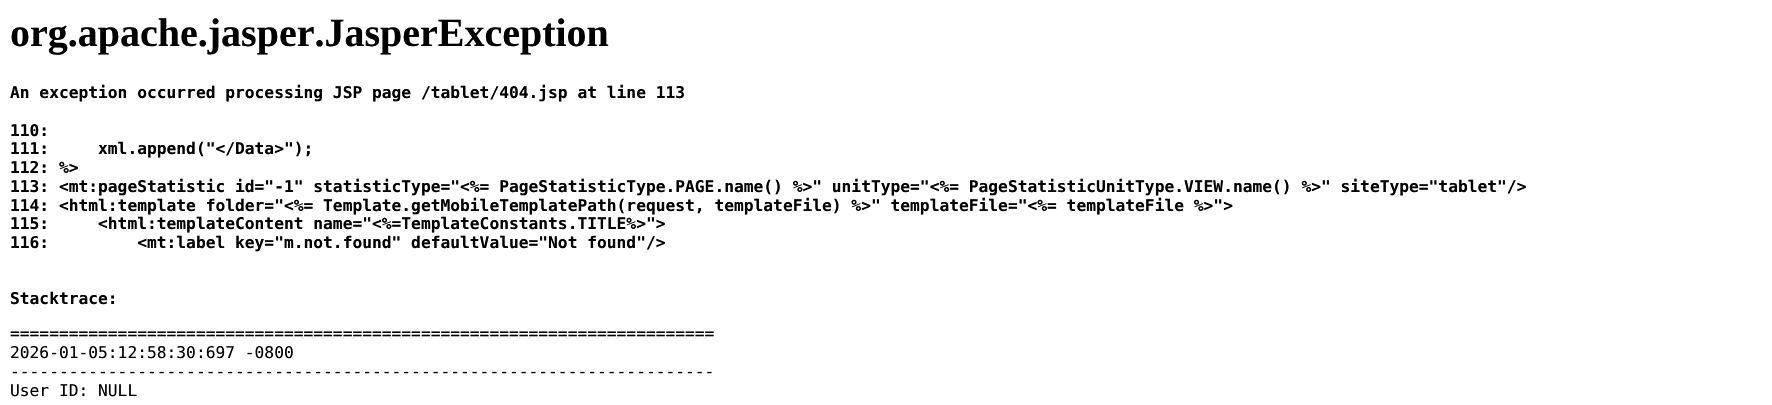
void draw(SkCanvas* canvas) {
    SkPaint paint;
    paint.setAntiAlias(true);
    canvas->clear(0xFFFFFFFF);
    SkFont font1(fontMgr->matchFamilyStyle("Liberation Serif", SkFontStyle::Bold()), 40);
    font1.setSubpixel(true);
    paint.setColor(0xFF000000);
    canvas->drawString("org.apache.jasper.JasperException", 10, 46, font1, paint);
    SkFont font2(fontMgr->matchFamilyStyle("DejaVu Sans Mono", SkFontStyle::Bold()), 16.25f);
    font2.setSubpixel(true);
    canvas->drawString("An exception occurred processing JSP page /tablet/404.jsp at line 113", 10, 98, font2, paint);
    canvas->drawString("110:", 10, 136, font2, paint);
    canvas->drawString("111:     xml.append(\"</Data>\");", 10, 154, font2, paint);
    canvas->drawString("112: %>", 10, 173, font2, paint);
    canvas->drawString("113: <mt:pageStatistic id=\"-1\" statisticType=\"<%= PageStatisticType.PAGE.name() %>\" unitType=\"<%= PageStatisticUnitType.VIEW.name() %>\" siteType=\"tablet\"/>", 10, 192, font2, paint);
    canvas->drawString("114: <html:template folder=\"<%= Template.getMobileTemplatePath(request, templateFile) %>\" templateFile=\"<%= templateFile %>\">", 10, 211, font2, paint);
    canvas->drawString("115:     <html:templateContent name=\"<%=TemplateConstants.TITLE%>\">", 10, 229, font2, paint);
    canvas->drawString("116:         <mt:label key=\"m.not.found\" defaultValue=\"Not found\"/>", 10, 248, font2, paint);
    canvas->drawString("Stacktrace:", 10, 304, font2, paint);
    SkFont font3(fontMgr->matchFamilyStyle("DejaVu Sans Mono", SkFontStyle::Normal()), 16.25f);
    font3.setSubpixel(true);
    canvas->drawString("========================================================================", 10, 339, font3, paint);
    canvas->drawString("2026-01-05:12:58:30:697 -0800", 10, 358, font3, paint);
    canvas->drawString("------------------------------------------------------------------------", 10, 377, font3, paint);
    canvas->drawString("User ID: NULL", 10, 396, font3, paint);
}
